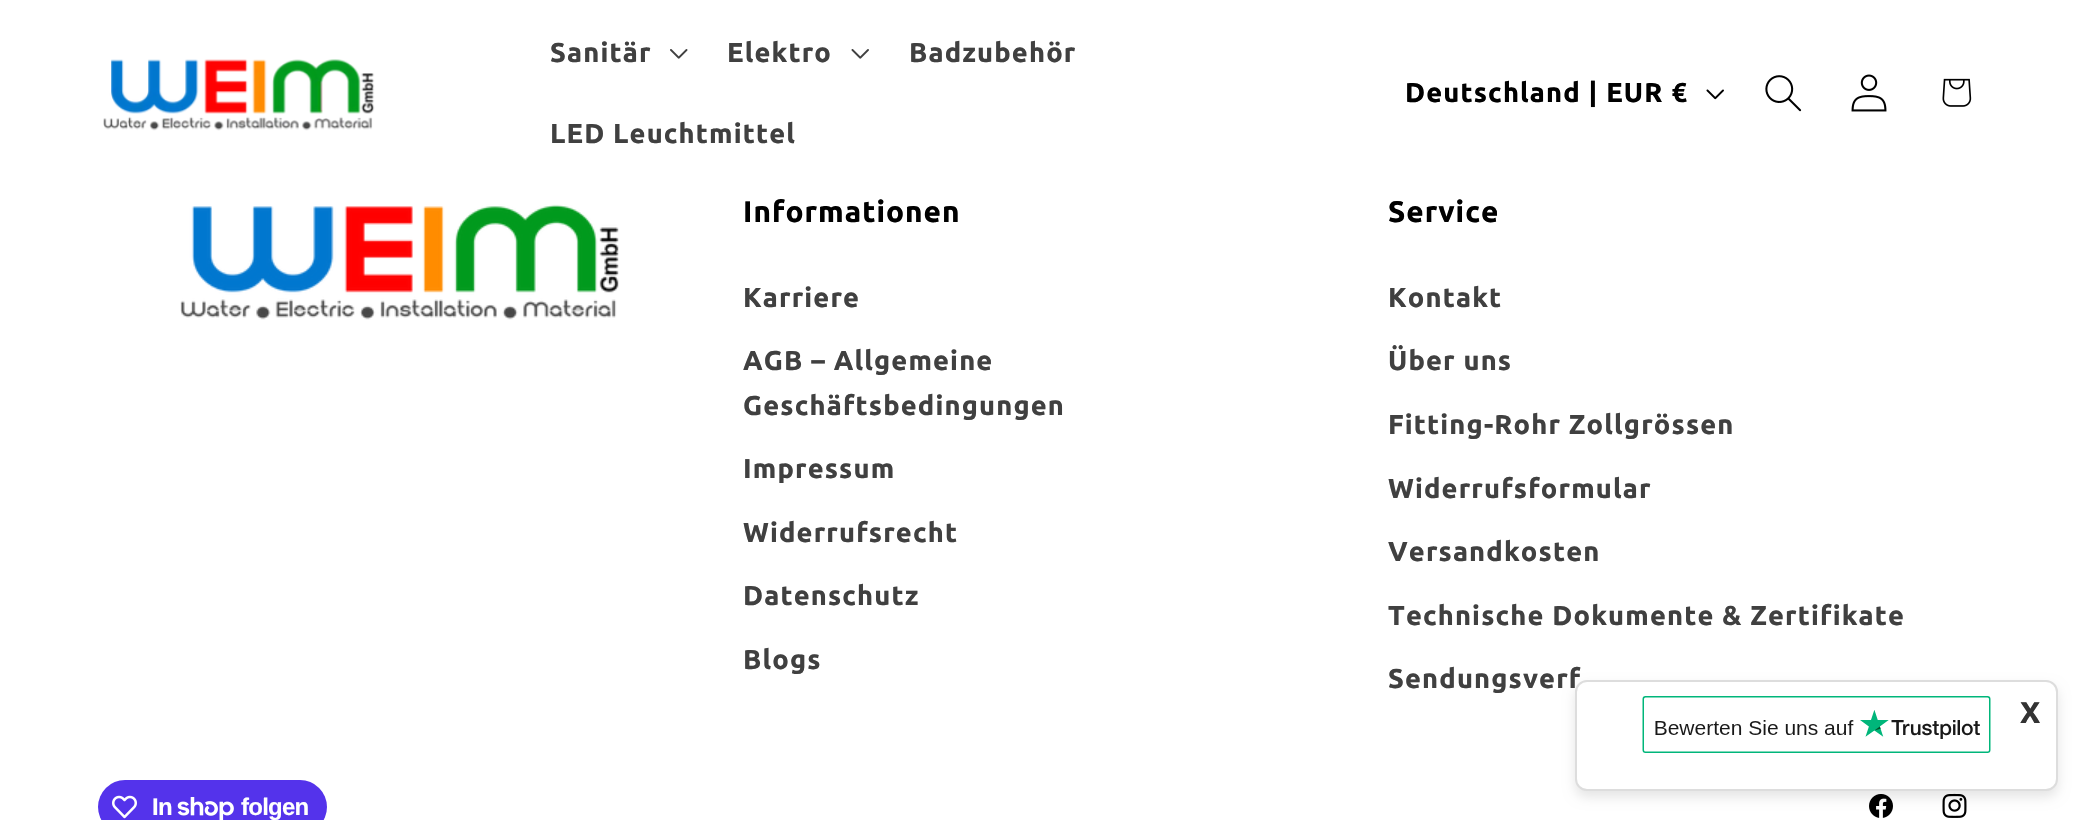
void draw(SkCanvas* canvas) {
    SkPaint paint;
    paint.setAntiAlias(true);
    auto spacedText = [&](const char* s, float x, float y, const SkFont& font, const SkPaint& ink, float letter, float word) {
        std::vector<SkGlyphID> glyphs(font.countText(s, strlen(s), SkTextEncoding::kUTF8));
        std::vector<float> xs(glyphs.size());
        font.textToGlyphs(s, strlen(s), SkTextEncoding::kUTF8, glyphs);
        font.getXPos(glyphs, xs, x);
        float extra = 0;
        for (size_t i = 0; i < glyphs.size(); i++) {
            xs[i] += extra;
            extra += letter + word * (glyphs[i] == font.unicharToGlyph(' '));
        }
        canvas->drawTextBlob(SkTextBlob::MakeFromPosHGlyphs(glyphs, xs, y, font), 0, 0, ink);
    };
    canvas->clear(0xFFFFFFFF);
    canvas->drawImageRect(SkImages::DeferredFromEncodedData(SkData::MakeFromFileName("img1.png")), SkRect::MakeXYWH(103, 59, 272, 72), SkSamplingOptions());
    SkFont font1(fontMgr->matchFamilyStyle("Ubuntu", SkFontStyle::Bold()), 27.25f);
    font1.setSubpixel(true);
    paint.setColor(0xFF404040);
    spacedText("Sanitär", 550, 62, font1, paint, 1.15f, 0);
    canvas->drawImageRect(SkImages::DeferredFromEncodedData(SkData::MakeFromFileName("img2.png")), SkRect::MakeXYWH(670, 49, 18, 10), SkSamplingOptions());
    spacedText("Elektro", 727, 62, font1, paint, 1.15f, 0);
    canvas->drawImageRect(SkImages::DeferredFromEncodedData(SkData::MakeFromFileName("img3.png")), SkRect::MakeXYWH(851, 49, 18, 10), SkSamplingOptions());
    spacedText("Badzubehör", 909, 62, font1, paint, 1.15f, 0);
    spacedText("LED Leuchtmittel", 550, 143, font1, paint, 1.15f, 0);
    paint.setColor(0xFF000000);
    spacedText("Deutschland | EUR €", 1405, 102, font1, paint, 1.15f, 0);
    canvas->drawImageRect(SkImages::DeferredFromEncodedData(SkData::MakeFromFileName("img4.png")), SkRect::MakeXYWH(1706, 89, 18, 11), SkSamplingOptions());
    canvas->drawImageRect(SkImages::DeferredFromEncodedData(SkData::MakeFromFileName("img5.png")), SkRect::MakeXYWH(1765, 75, 37, 37), SkSamplingOptions());
    canvas->drawImageRect(SkImages::DeferredFromEncodedData(SkData::MakeFromFileName("img6.png")), SkRect::MakeXYWH(1851, 74, 36, 38), SkSamplingOptions());
    canvas->drawImageRect(SkImages::DeferredFromEncodedData(SkData::MakeFromFileName("img7.png")), SkRect::MakeXYWH(1942, 78, 30, 29), SkSamplingOptions());
    canvas->drawImageRect(SkImages::DeferredFromEncodedData(SkData::MakeFromFileName("img8.png")), SkRect::MakeXYWH(180, 204, 439, 116), SkSamplingOptions());
    SkFont font2(fontMgr->matchFamilyStyle("Ubuntu", SkFontStyle::Bold()), 29.75f);
    font2.setSubpixel(true);
    spacedText("Informationen", 743, 222, font2, paint, 1, 0);
    paint.setColor(0xFF404040);
    spacedText("Karriere", 743, 307, font1, paint, 1.15f, 0);
    spacedText("AGB – Allgemeine", 743, 370, font1, paint, 1.15f, 0);
    spacedText("Geschäftsbedingungen", 743, 415, font1, paint, 1.15f, 0);
    spacedText("Impressum", 743, 478, font1, paint, 1.15f, 0);
    spacedText("Widerrufsrecht", 743, 542, font1, paint, 1.15f, 0);
    spacedText("Datenschutz", 743, 605, font1, paint, 1.15f, 0);
    spacedText("Blogs", 743, 669, font1, paint, 1.15f, 0);
    paint.setColor(0xFF000000);
    spacedText("Service", 1388, 222, font2, paint, 1, 0);
    paint.setColor(0xFF404040);
    spacedText("Kontakt", 1388, 307, font1, paint, 1.15f, 0);
    spacedText("Über uns", 1388, 370, font1, paint, 1.15f, 0);
    spacedText("Fitting-Rohr Zollgrössen", 1388, 434, font1, paint, 1.15f, 0);
    spacedText("Widerrufsformular", 1388, 498, font1, paint, 1.15f, 0);
    spacedText("Versandkosten", 1388, 561, font1, paint, 1.15f, 0);
    spacedText("Technische Dokumente & Zertifikate", 1388, 625, font1, paint, 1.15f, 0);
    spacedText("Sendungsverf", 1388, 688, font1, paint, 1.15f, 0);
    paint.setColor(0xFF5433EB);
    canvas->drawRoundRect(SkRect::MakeXYWH(98, 780, 229, 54), 27, 27, paint);
    canvas->drawImageRect(SkImages::DeferredFromEncodedData(SkData::MakeFromFileName("img9.png")), SkRect::MakeXYWH(112, 795, 25, 24), SkSamplingOptions());
    SkFont font3(fontMgr->matchFamilyStyle("Liberation Sans", SkFontStyle::Bold()), 24);
    font3.setSubpixel(true);
    paint.setColor(0xFFFFFFFF);
    spacedText("In", 152, 815, font3, paint, -0.75f, 0);
    canvas->drawImageRect(SkImages::DeferredFromEncodedData(SkData::MakeFromFileName("img10.png")), SkRect::MakeXYWH(177, 797, 57, 23), SkSamplingOptions());
    spacedText("folgen", 241, 815, font3, paint, -0.75f, 0);
    canvas->drawImageRect(SkImages::DeferredFromEncodedData(SkData::MakeFromFileName("img11.png")), SkRect::MakeXYWH(1869, 794, 24, 24), SkSamplingOptions());
    canvas->drawImageRect(SkImages::DeferredFromEncodedData(SkData::MakeFromFileName("img12.png")), SkRect::MakeXYWH(1942, 793, 25, 25), SkSamplingOptions());
    paint.setColor(0x1A000000);
    paint.setMaskFilter(SkMaskFilter::MakeBlur(kNormal_SkBlurStyle, 6));
    canvas->drawRoundRect(SkRect::MakeXYWH(1575, 686, 483, 111), 12, 12, paint);
    paint.setMaskFilter(nullptr);
    paint.setColor(0xFFFFFFFF);
    canvas->drawRoundRect(SkRect::MakeXYWH(1576, 681, 481, 109), 11, 11, paint);
    paint.setStyle(SkPaint::kStroke_Style);
    paint.setStrokeWidth(2);
    paint.setColor(0xFFDDDDDD);
    canvas->drawRoundRect(SkRect::MakeXYWH(1576, 681, 481, 109), 11, 11, paint);
    canvas->drawImageRect(SkImages::DeferredFromEncodedData(SkData::MakeFromFileName("img13.png")), SkRect::MakeXYWH(1642, 696, 349, 57), SkSamplingOptions());
    SkFont font4(fontMgr->matchFamilyStyle("Ubuntu", SkFontStyle::Bold()), 30);
    font4.setSubpixel(true);
    paint.setStyle(SkPaint::kFill_Style);
    paint.setColor(0xFF333333);
    spacedText("X", 2020, 723, font4, paint, 1.15f, 0);
}
